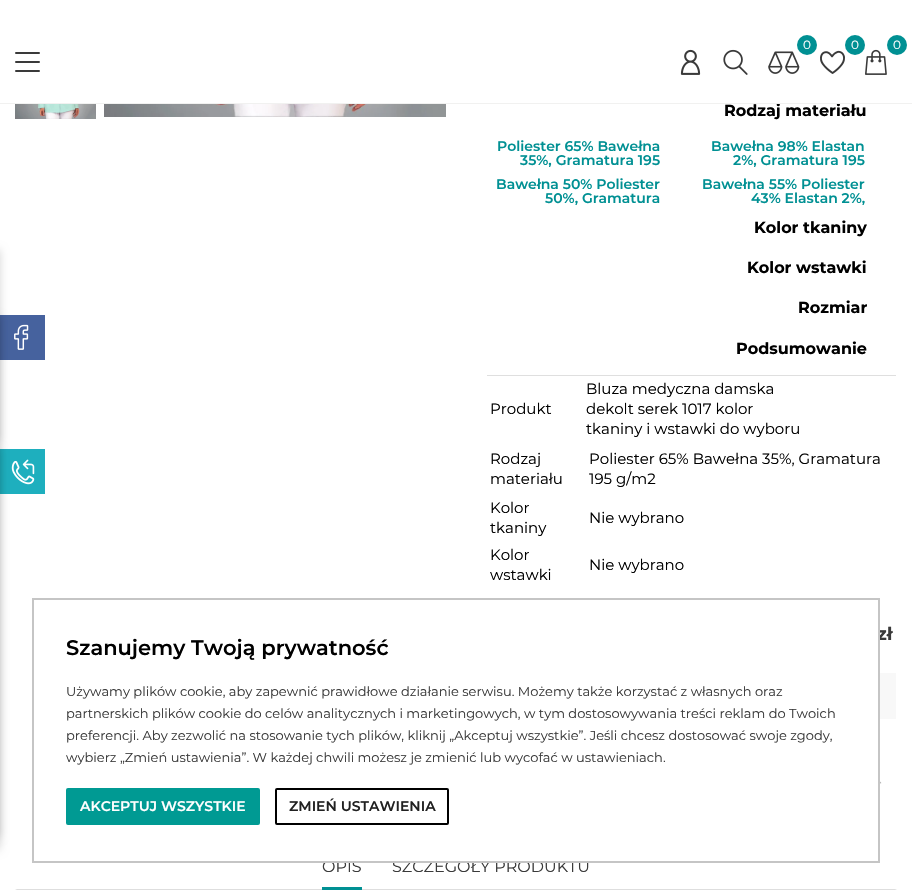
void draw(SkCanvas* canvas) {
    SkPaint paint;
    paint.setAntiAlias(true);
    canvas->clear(0xFFFFFFFF);
    SkFont font1(fontMgr->matchFamilyStyle("Montserrat", SkFontStyle::Bold()), 16);
    font1.setSubpixel(true);
    paint.setColor(0xFF000000);
    canvas->drawString("Rodzaj materiału", 724, 116, font1, paint);
    paint.setColor(0xFFF1F1F0);
    canvas->drawRect(SkRect::MakeXYWH(0, 103, 912, 1), paint);
    canvas->drawImageRect(SkImages::DeferredFromEncodedData(SkData::MakeFromFileName("img1.png")), SkRect::MakeXYWH(768, 51, 32, 23), SkSamplingOptions());
    paint.setColor(0xFF009093);
    canvas->drawCircle(807, 45, 10, paint);
    SkFont font2(fontMgr->matchFamilyStyle("Montserrat", SkFontStyle::Normal()), 12);
    font2.setSubpixel(true);
    paint.setColor(0xFFFFFFFF);
    canvas->drawString("0", 803, 49, font2, paint);
    paint.setColor(0xFF009093);
    canvas->drawCircle(855, 45, 10, paint);
    paint.setColor(0xFFFFFFFF);
    canvas->drawString("0", 851, 49, font2, paint);
    canvas->drawImageRect(SkImages::DeferredFromEncodedData(SkData::MakeFromFileName("img2.png")), SkRect::MakeXYWH(820, 50, 25, 24), SkSamplingOptions());
    paint.setColor(0xFF009093);
    canvas->drawCircle(897, 45, 10, paint);
    paint.setColor(0xFFFFFFFF);
    canvas->drawString("0", 893, 49, font2, paint);
    canvas->drawImageRect(SkImages::DeferredFromEncodedData(SkData::MakeFromFileName("img3.png")), SkRect::MakeXYWH(865, 49, 22, 26), SkSamplingOptions());
    canvas->drawImageRect(SkImages::DeferredFromEncodedData(SkData::MakeFromFileName("img4.png")), SkRect::MakeXYWH(680, 49, 21, 26), SkSamplingOptions());
    canvas->drawImageRect(SkImages::DeferredFromEncodedData(SkData::MakeFromFileName("img5.png")), SkRect::MakeXYWH(723, 49, 25, 26), SkSamplingOptions());
    paint.setColor(0xFF3A3A3A);
    canvas->drawRoundRect(SkRect::MakeXYWH(15, 52, 25, 2), 1, 1, paint);
    canvas->drawRoundRect(SkRect::MakeXYWH(15, 61, 25, 2), 1, 1, paint);
    canvas->drawRoundRect(SkRect::MakeXYWH(15, 70, 25, 2), 1, 1, paint);
    paint.setColor(0xFF46629E);
    canvas->drawRect(SkRect::MakeXYWH(0, 315, 45, 45), paint);
    paint.setColor(0xFF1EAFBE);
    canvas->drawRect(SkRect::MakeXYWH(0, 449, 45, 45), paint);
    paint.setColor(0x29000000);
    paint.setMaskFilter(SkMaskFilter::MakeBlur(kNormal_SkBlurStyle, 4));
    canvas->drawRect(SkRect::MakeXYWH(-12, 250, 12, 192), paint);
    paint.setMaskFilter(nullptr);
    canvas->drawImageRect(SkImages::DeferredFromEncodedData(SkData::MakeFromFileName("img6.png")), SkRect::MakeXYWH(15, 104, 81, 15), SkSamplingOptions());
    canvas->drawImageRect(SkImages::DeferredFromEncodedData(SkData::MakeFromFileName("img7.png")), SkRect::MakeXYWH(104, 104, 342, 13), SkSamplingOptions());
    SkFont font3(fontMgr->matchFamilyStyle("Montserrat", SkFontStyle(600, SkFontStyle::kNormal_Width, SkFontStyle::kUpright_Slant)), 14);
    font3.setSubpixel(true);
    paint.setColor(0xFF009093);
    canvas->drawString("Poliester 65% Bawełna", 497, 151, font3, paint);
    canvas->drawString("35%, Gramatura 195", 520, 165, font3, paint);
    canvas->drawString("Bawełna 98% Elastan", 711, 151, font3, paint);
    canvas->drawString("2%, Gramatura 195", 733, 165, font3, paint);
    canvas->drawString("Bawełna 50% Poliester", 496, 189, font3, paint);
    canvas->drawString("50%, Gramatura", 545, 203, font3, paint);
    canvas->drawString("Bawełna 55% Poliester", 702, 189, font3, paint);
    canvas->drawString("43% Elastan 2%,", 751, 203, font3, paint);
    paint.setColor(0xFF000000);
    canvas->drawString("Kolor tkaniny", 754, 233, font1, paint);
    canvas->drawString("Kolor wstawki", 747, 273, font1, paint);
    canvas->drawString("Rozmiar", 798, 313, font1, paint);
    paint.setColor(0xFFDFDFDF);
    canvas->drawRect(SkRect::MakeXYWH(487, 375, 409, 1), paint);
    paint.setColor(0xFF000000);
    canvas->drawString("Podsumowanie", 736, 354, font1, paint);
    SkFont font4(fontMgr->matchFamilyStyle("Montserrat", SkFontStyle::Normal()), 15);
    font4.setSubpixel(true);
    canvas->drawString("Produkt", 490, 414, font4, paint);
    canvas->drawString("Bluza medyczna damska", 586, 394, font4, paint);
    canvas->drawString("dekolt serek 1017 kolor", 586, 414, font4, paint);
    canvas->drawString("tkaniny i wstawki do wyboru", 586, 434, font4, paint);
    canvas->drawString("Rodzaj", 490, 464, font4, paint);
    canvas->drawString("materiału", 490, 484, font4, paint);
    canvas->drawString("Poliester 65% Bawełna 35%, Gramatura", 589, 464, font4, paint);
    canvas->drawString("195 g/m2", 589, 484, font4, paint);
    canvas->drawString("Kolor", 490, 513, font4, paint);
    canvas->drawString("tkaniny", 490, 533, font4, paint);
    canvas->drawString("Nie wybrano", 589, 523, font4, paint);
    canvas->drawString("Kolor", 490, 560, font4, paint);
    canvas->drawString("wstawki", 490, 580, font4, paint);
    canvas->drawString("Nie wybrano", 589, 570, font4, paint);
    SkFont font5(fontMgr->matchFamilyStyle("Montserrat", SkFontStyle::Bold()), 18);
    font5.setSubpixel(true);
    paint.setColor(0xFF3A3A3A);
    canvas->drawString("zł", 877, 640, font5, paint);
    paint.setColor(0xFFF8F8F8);
    canvas->drawRect(SkRect::MakeXYWH(880, 673, 16, 46), paint);
    paint.setColor(0xFFDEDEDE);
    canvas->drawPath(SkPathBuilder().moveTo(897, 890).lineTo(15, 890).lineTo(17, 889).lineTo(895, 889).close().detach(), paint);
    SkFont font6(fontMgr->matchFamilyStyle("Montserrat", SkFontStyle::Normal()), 16);
    font6.setSubpixel(true);
    paint.setColor(0xFF3A3A3A);
    canvas->drawString("OPIS", 322, 872, font6, paint);
    paint.setColor(0xFF009093);
    canvas->drawRect(SkRect::MakeXYWH(322, 887, 40, 3), paint);
    paint.setColor(0xFF3A3A3A);
    canvas->drawString("SZCZEGÓŁY PRODUKTU", 392, 872, font6, paint);
    canvas->drawImageRect(SkImages::DeferredFromEncodedData(SkData::MakeFromFileName("img9.png")), SkRect::MakeXYWH(11, 459, 24, 26), SkSamplingOptions());
    paint.setColor(0x29000000);
    paint.setMaskFilter(SkMaskFilter::MakeBlur(kNormal_SkBlurStyle, 4));
    canvas->drawRect(SkRect::MakeXYWH(-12, 317, 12, 520), paint);
    paint.setMaskFilter(nullptr);
    canvas->drawImageRect(SkImages::DeferredFromEncodedData(SkData::MakeFromFileName("img8.png")), SkRect::MakeXYWH(14, 324, 15, 26), SkSamplingOptions());
    paint.setColor(0x26000000);
    paint.setMaskFilter(SkMaskFilter::MakeBlur(kNormal_SkBlurStyle, 4.5f));
    canvas->drawRect(SkRect::MakeXYWH(-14, 449, 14, 401), paint);
    paint.setMaskFilter(nullptr);
    paint.setColor(0xFFB2B2B2);
    canvas->drawPath(SkPathBuilder().moveTo(864.5f, 766).lineTo(847.5f, 783).cubicTo(847.5f, 783, 847.5f, 783.5f, 848, 783.5f).lineTo(864.5f, 767).lineTo(880.5f, 783.5f).cubicTo(881, 783.5f, 881.5f, 783, 881, 782.5f).close().detach(), paint);
    paint.setStyle(SkPaint::kStroke_Style);
    paint.setStrokeWidth(2);
    paint.setColor(0xFFC5C5C5);
    canvas->drawRect(SkRect::MakeXYWH(33, 599, 846, 263), paint);
    paint.setStyle(SkPaint::kFill_Style);
    paint.setColor(0xFFFFFFFF);
    canvas->drawRect(SkRect::MakeXYWH(327, 630, 551, 231), paint);
    SkFont font7(fontMgr->matchFamilyStyle("Montserrat", SkFontStyle(600, SkFontStyle::kNormal_Width, SkFontStyle::kUpright_Slant)), 21);
    font7.setSubpixel(true);
    paint.setColor(0xFF000000);
    canvas->drawString("Szanujemy Twoją prywatność", 66, 655, font7, paint);
    SkFont font8(fontMgr->matchFamilyStyle("Montserrat", SkFontStyle::Normal()), 13);
    font8.setSubpixel(true);
    paint.setColor(0xFF3A3A3A);
    canvas->drawString("Używamy plików cookie, aby zapewnić prawidłowe działanie serwisu. Możemy także korzystać z własnych oraz", 66, 696, font8, paint);
    canvas->drawString("partnerskich plików cookie do celów analitycznych i marketingowych, w tym dostosowywania treści reklam do Twoich", 66, 718, font8, paint);
    canvas->drawString("preferencji. Aby zezwolić na stosowanie tych plików, kliknij „Akceptuj wszystkie”. Jeśli chcesz dostosować swoje zgody,", 66, 740, font8, paint);
    canvas->drawString("wybierz „Zmień ustawienia”. W każdej chwili możesz je zmienić lub wycofać w ustawieniach.", 66, 762, font8, paint);
    paint.setColor(0xFF009A93);
    canvas->drawRoundRect(SkRect::MakeXYWH(67, 789, 192, 35), 1, 1, paint);
    paint.setStyle(SkPaint::kStroke_Style);
    canvas->drawRoundRect(SkRect::MakeXYWH(67, 789, 192, 35), 1, 1, paint);
    paint.setStyle(SkPaint::kFill_Style);
    paint.setColor(0xFFFFFFFF);
    canvas->drawString("AKCEPTUJ WSZYSTKIE", 80, 811, font3, paint);
    paint.setStyle(SkPaint::kStroke_Style);
    paint.setColor(0xFF000000);
    canvas->drawRoundRect(SkRect::MakeXYWH(276, 789, 172, 35), 1, 1, paint);
    paint.setStyle(SkPaint::kFill_Style);
    paint.setColor(0xFF212121);
    canvas->drawString("ZMIEŃ USTAWIENIA", 289, 811, font3, paint);
}
